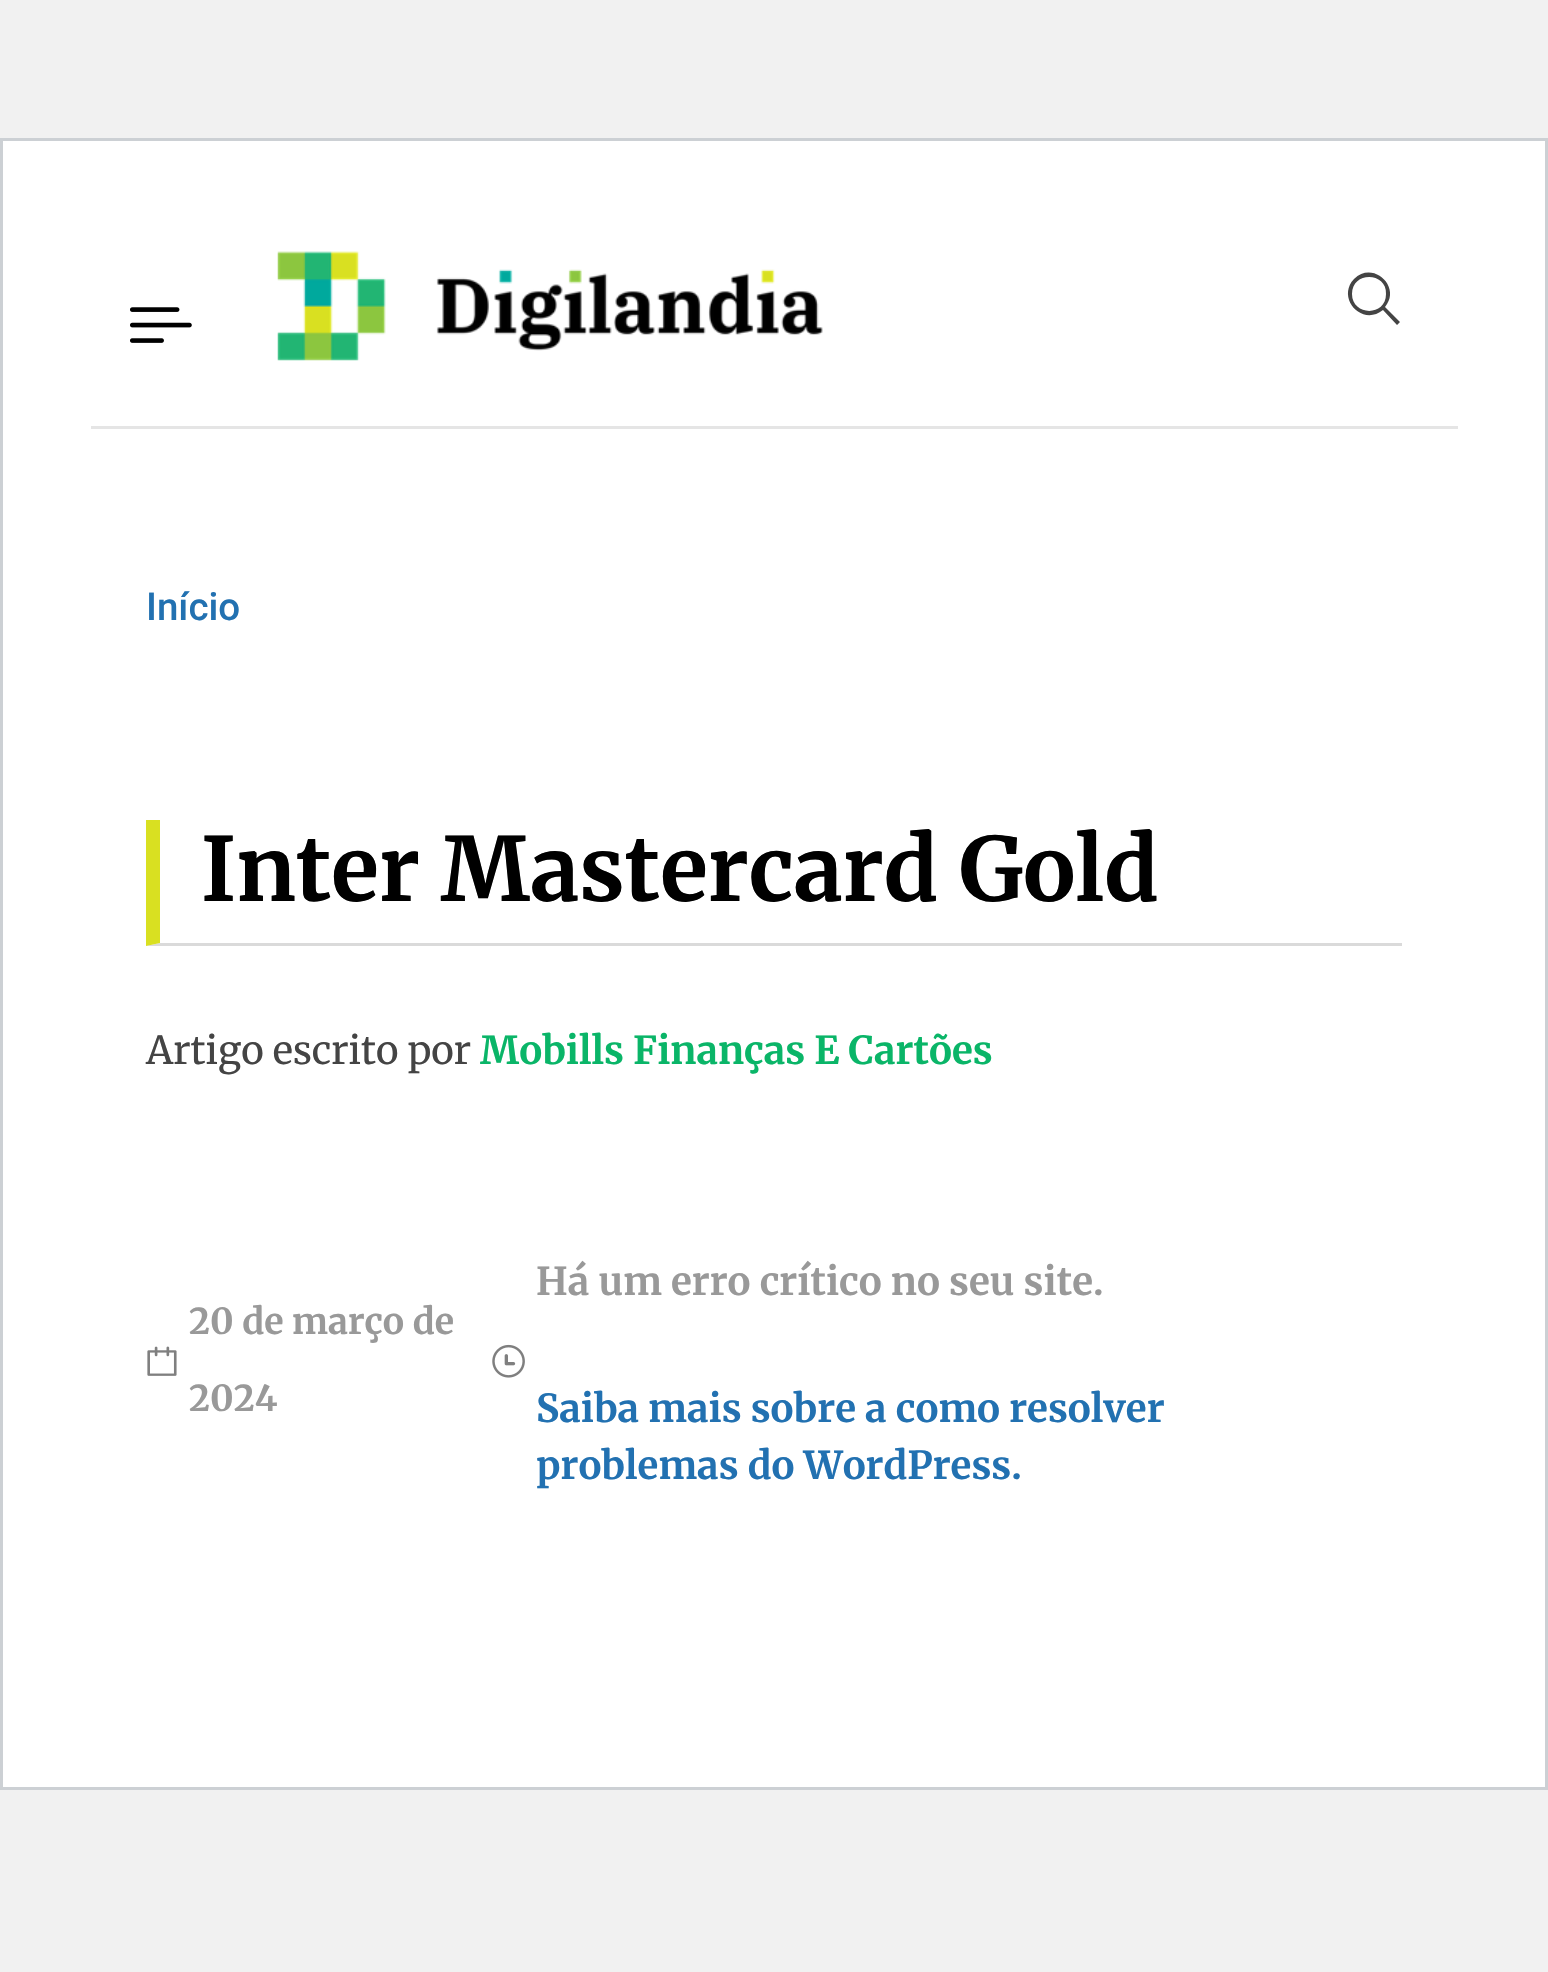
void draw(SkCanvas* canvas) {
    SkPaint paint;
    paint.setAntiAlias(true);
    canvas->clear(0xFFF1F1F1);
    paint.setColor(0xFFFFFFFF);
    canvas->drawRect(SkRect::MakeXYWH(1.5f, 139.5f, 1545, 1649), paint);
    paint.setStyle(SkPaint::kStroke_Style);
    paint.setStrokeWidth(3);
    paint.setColor(0xFFCCD0D4);
    canvas->drawRect(SkRect::MakeXYWH(1.5f, 139.5f, 1545, 1649), paint);
    paint.setStyle(SkPaint::kFill_Style);
    paint.setColor(0xFFE5E5E5);
    canvas->drawRect(SkRect::MakeXYWH(91, 426, 1367, 3), paint);
    canvas->drawImageRect(SkImages::DeferredFromEncodedData(SkData::MakeFromFileName("img1.png")), SkRect::MakeXYWH(130, 307, 62, 36), SkSamplingOptions());
    canvas->drawImageRect(SkImages::DeferredFromEncodedData(SkData::MakeFromFileName("img2.png")), SkRect::MakeXYWH(277, 251, 546, 110), SkSamplingOptions());
    paint.setColor(0xFF444444);
    canvas->drawPath(SkPathBuilder().moveTo(1400, 322).lineTo(1385, 307).cubicTo(1402, 287, 1373, 260, 1354, 279).cubicTo(1336, 298, 1362, 327, 1383, 310).lineTo(1397, 325).close().moveTo(1352, 294).cubicTo(1352, 271, 1387, 272, 1386, 294).cubicTo(1386, 317, 1352, 316, 1352, 294).close().detach(), paint);
    SkFont font1(fontMgr->matchFamilyStyle("Roboto", SkFontStyle(500, SkFontStyle::kNormal_Width, SkFontStyle::kUpright_Slant)), 38.5f);
    font1.setSubpixel(true);
    paint.setColor(0xFF2271B1);
    canvas->drawString("Início", 146, 620, font1, paint);
    paint.setColor(0xFFDADADA);
    canvas->drawPath(SkPathBuilder().moveTo(1402, 946).lineTo(146, 946).lineTo(160, 943).lineTo(1402, 943).close().detach(), paint);
    paint.setColor(0xFFD9E021);
    canvas->drawPath(SkPathBuilder().moveTo(146, 946).lineTo(146, 820).lineTo(160, 820).lineTo(160, 943).close().detach(), paint);
    SkFont font2(fontMgr->matchFamilyStyle("Merriweather", SkFontStyle::Bold()), 88);
    font2.setSubpixel(true);
    paint.setColor(0xFF000000);
    canvas->drawString("Inter Mastercard Gold", 201, 901, font2, paint);
    SkFont font3(fontMgr->matchFamilyStyle("Merriweather", SkFontStyle::Normal()), 38.5f);
    font3.setSubpixel(true);
    paint.setColor(0xFF444444);
    canvas->drawString("Artigo escrito por", 146, 1064, font3, paint);
    SkFont font4(fontMgr->matchFamilyStyle("Merriweather", SkFontStyle::Bold()), 38.5f);
    font4.setSubpixel(true);
    paint.setColor(0xFF0AB568);
    canvas->drawString("Mobills Finanças E Cartões", 480, 1064, font4, paint);
    SkFont font5(fontMgr->matchFamilyStyle("Merriweather", SkFontStyle::Bold()), 35.75f);
    font5.setSubpixel(true);
    paint.setColor(0xFF999999);
    canvas->drawString("20 de março de", 189, 1334, font5, paint);
    canvas->drawImageRect(SkImages::DeferredFromEncodedData(SkData::MakeFromFileName("img3.png")), SkRect::MakeXYWH(147, 1346, 30, 30), SkSamplingOptions());
    canvas->drawString("2024", 189, 1411, font5, paint);
    canvas->drawImageRect(SkImages::DeferredFromEncodedData(SkData::MakeFromFileName("img4.png")), SkRect::MakeXYWH(492, 1344, 33, 34), SkSamplingOptions());
    canvas->drawString("Há um erro crítico no seu site.", 536, 1295, font4, paint);
    paint.setColor(0xFF2271B1);
    canvas->drawString("Saiba mais sobre a como resolver", 536, 1422, font4, paint);
    canvas->drawString("problemas do WordPress.", 536, 1479, font4, paint);
}
